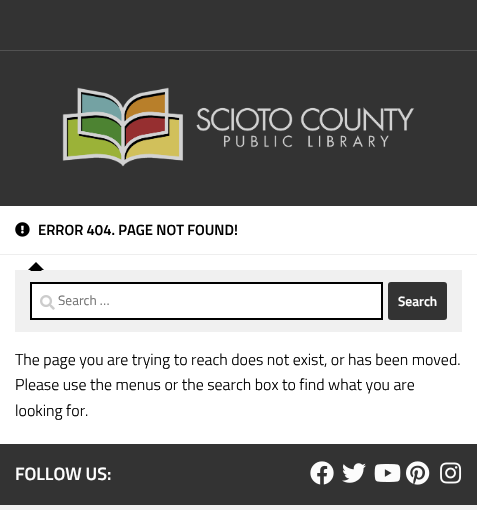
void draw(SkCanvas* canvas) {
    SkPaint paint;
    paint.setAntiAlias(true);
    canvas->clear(0xFFFFFFFF);
    paint.setColor(0xFF333333);
    canvas->drawRect(SkRect::MakeXYWH(0, 0, 477, 206), paint);
    paint.setColor(0xFF525252);
    canvas->drawRect(SkRect::MakeXYWH(0, 50, 477, 1), paint);
    canvas->drawImageRect(SkImages::DeferredFromEncodedData(SkData::MakeFromFileName("img1.png")), SkRect::MakeXYWH(62, 87, 353, 80), SkSamplingOptions());
    paint.setColor(0xFFEEEEEE);
    canvas->drawRect(SkRect::MakeXYWH(0, 254, 477, 1), paint);
    canvas->drawImageRect(SkImages::DeferredFromEncodedData(SkData::MakeFromFileName("img2.png")), SkRect::MakeXYWH(15, 222, 15, 15), SkSamplingOptions());
    SkFont font1(fontMgr->matchFamilyStyle("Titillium", SkFontStyle(600, SkFontStyle::kNormal_Width, SkFontStyle::kUpright_Slant)), 14.8f);
    font1.setSubpixel(true);
    paint.setColor(0xFF000000);
    canvas->drawString("ERROR 404. PAGE NOT FOUND!", 38, 235, font1, paint);
    paint.setColor(0xFFF0F0F0);
    canvas->drawRect(SkRect::MakeXYWH(15, 270, 447, 62), paint);
    paint.setColor(0xFF000000);
    canvas->drawPath(SkPathBuilder().moveTo(44, 270).lineTo(28, 270).lineTo(36, 262).close().detach(), paint);
    canvas->drawPath(SkPathBuilder().moveTo(42, 271).lineTo(30, 271).lineTo(36, 265).close().detach(), paint);
    paint.setColor(0xFFFFFFFF);
    canvas->drawRect(SkRect::MakeXYWH(31, 283, 351, 36), paint);
    paint.setStyle(SkPaint::kStroke_Style);
    paint.setStrokeWidth(2);
    paint.setColor(0xFF000000);
    canvas->drawRect(SkRect::MakeXYWH(31, 283, 351, 36), paint);
    canvas->drawImageRect(SkImages::DeferredFromEncodedData(SkData::MakeFromFileName("img3.png")), SkRect::MakeXYWH(40, 295, 15, 15), SkSamplingOptions());
    SkFont font2(fontMgr->matchFamilyStyle("Titillium", SkFontStyle::Normal()), 13.5f);
    font2.setSubpixel(true);
    paint.setStyle(SkPaint::kFill_Style);
    paint.setColor(0xFF757575);
    canvas->drawString("Search …", 58, 305, font2, paint);
    paint.setColor(0xFF333333);
    canvas->drawRoundRect(SkRect::MakeXYWH(388, 282, 59, 38), 3, 3, paint);
    SkFont font3(fontMgr->matchFamilyStyle("Titillium", SkFontStyle(600, SkFontStyle::kNormal_Width, SkFontStyle::kUpright_Slant)), 13.5f);
    font3.setSubpixel(true);
    paint.setColor(0xFFFFFFFF);
    canvas->drawString("Search", 398, 306, font3, paint);
    SkFont font4(fontMgr->matchFamilyStyle("Titillium", SkFontStyle(300, SkFontStyle::kNormal_Width, SkFontStyle::kUpright_Slant)), 15.9f);
    font4.setSubpixel(true);
    paint.setColor(0xFF000000);
    canvas->drawString("The page you are trying to reach does not exist, or has been moved.", 15, 365, font4, paint);
    canvas->drawString("Please use the menus or the search box to find what you are", 15, 390, font4, paint);
    canvas->drawString("looking for.", 15, 416, font4, paint);
    paint.setColor(0xFFF2F2F2);
    canvas->drawRect(SkRect::MakeXYWH(0, 505, 477, 5), paint);
    paint.setColor(0xFF333333);
    canvas->drawRect(SkRect::MakeXYWH(0, 444, 477, 61), paint);
    SkFont font5(fontMgr->matchFamilyStyle("Titillium", SkFontStyle(600, SkFontStyle::kNormal_Width, SkFontStyle::kUpright_Slant)), 18);
    font5.setSubpixel(true);
    paint.setColor(0xFFFFFFFF);
    canvas->drawString("FOLLOW US:", 15, 480, font5, paint);
    canvas->drawImageRect(SkImages::DeferredFromEncodedData(SkData::MakeFromFileName("img4.png")), SkRect::MakeXYWH(310, 461, 24, 24), SkSamplingOptions());
    canvas->drawImageRect(SkImages::DeferredFromEncodedData(SkData::MakeFromFileName("img5.png")), SkRect::MakeXYWH(342, 463, 24, 20), SkSamplingOptions());
    canvas->drawImageRect(SkImages::DeferredFromEncodedData(SkData::MakeFromFileName("img6.png")), SkRect::MakeXYWH(374, 464, 27, 18), SkSamplingOptions());
    canvas->drawImageRect(SkImages::DeferredFromEncodedData(SkData::MakeFromFileName("img7.png")), SkRect::MakeXYWH(406, 461, 24, 24), SkSamplingOptions());
    canvas->drawImageRect(SkImages::DeferredFromEncodedData(SkData::MakeFromFileName("img8.png")), SkRect::MakeXYWH(440, 462, 22, 22), SkSamplingOptions());
}
